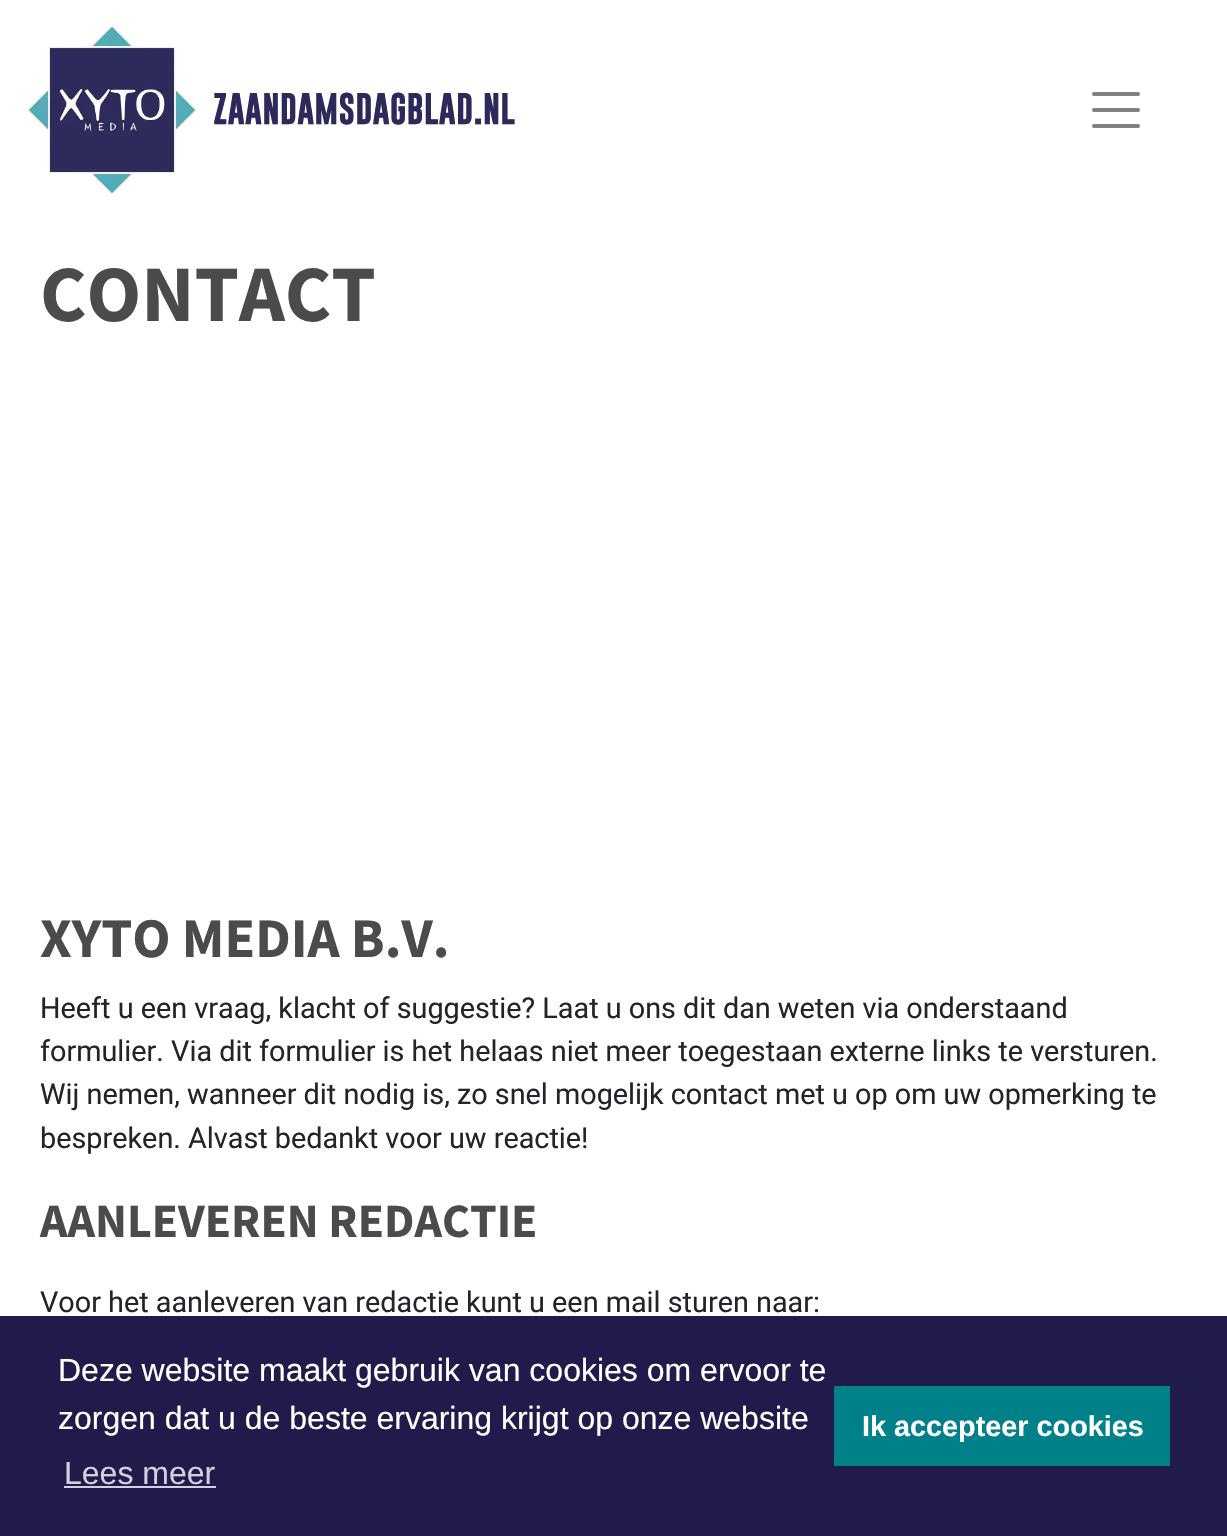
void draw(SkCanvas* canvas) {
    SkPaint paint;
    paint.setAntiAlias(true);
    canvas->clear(0xFFFFFFFF);
    canvas->drawImageRect(SkImages::DeferredFromEncodedData(SkData::MakeFromFileName("img1.png")), SkRect::MakeXYWH(26, 25, 171, 170), SkSamplingOptions());
    SkFont font1(fontMgr->matchFamilyStyle("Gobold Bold", SkFontStyle::Bold()), 32);
    font1.setSubpixel(true);
    paint.setColor(0xFF2D2A5B);
    canvas->drawString("ZAANDAMSDAGBLAD.NL", 213, 124, font1, paint);
    paint.setStyle(SkPaint::kStroke_Style);
    paint.setStrokeWidth(4);
    paint.setStrokeCap(SkPaint::kRound_Cap);
    paint.setColor(0xFF808080);
    canvas->drawPath(SkPathBuilder().moveTo(1094, 94).lineTo(1138, 94).moveTo(1094, 110).lineTo(1138, 110).moveTo(1094, 126).lineTo(1138, 126).detach(), paint);
    SkFont font2(fontMgr->matchFamilyStyle("Source Sans Pro", SkFontStyle::Bold()), 80);
    font2.setSubpixel(true);
    paint.setStyle(SkPaint::kFill_Style);
    paint.setColor(0xFF4C4B4B);
    canvas->drawString("CONTACT", 40, 321, font2, paint);
    SkFont font3(fontMgr->matchFamilyStyle("Source Sans Pro", SkFontStyle::Bold()), 56);
    font3.setSubpixel(true);
    canvas->drawString("XYTO MEDIA B.V.", 40, 957, font3, paint);
    SkFont font4(fontMgr->matchFamilyStyle("Roboto", SkFontStyle::Normal()), 28.8f);
    font4.setSubpixel(true);
    paint.setColor(0xFF212529);
    canvas->drawString("Heeft u een vraag, klacht of suggestie? Laat u ons dit dan weten via onderstaand", 40, 1018, font4, paint);
    canvas->drawString("formulier. Via dit formulier is het helaas niet meer toegestaan externe links te versturen.", 40, 1061, font4, paint);
    canvas->drawString("Wij nemen, wanneer dit nodig is, zo snel mogelijk contact met u op om uw opmerking te", 40, 1104, font4, paint);
    canvas->drawString("bespreken. Alvast bedankt voor uw reactie!", 40, 1148, font4, paint);
    SkFont font5(fontMgr->matchFamilyStyle("Source Sans Pro", SkFontStyle::Bold()), 48);
    font5.setSubpixel(true);
    paint.setColor(0xFF4C4B4B);
    canvas->drawString("AANLEVEREN REDACTIE", 40, 1237, font5, paint);
    paint.setColor(0xFF212529);
    canvas->drawString("Voor het aanleveren van redactie kunt u een mail sturen naar:", 40, 1312, font4, paint);
    paint.setColor(0xFF201B4A);
    canvas->drawRect(SkRect::MakeXYWH(0, 1316, 1227, 220), paint);
    SkFont font6(fontMgr->matchFamilyStyle("Liberation Sans", SkFontStyle::Normal()), 32);
    font6.setSubpixel(true);
    paint.setColor(0xFFFFFFFF);
    canvas->drawString("Deze website maakt gebruik van cookies om ervoor te", 58, 1381, font6, paint);
    canvas->drawString("zorgen dat u de beste ervaring krijgt op onze website", 58, 1429, font6, paint);
    paint.setColor(0xFFD2D1DB);
    canvas->drawString("Lees meer", 64, 1484, font6, paint);
    canvas->drawRect(SkRect::MakeXYWH(64, 1486, 152, 2), paint);
    paint.setColor(0xFF00818A);
    canvas->drawRect(SkRect::MakeXYWH(834, 1386, 336, 80), paint);
    SkFont font7(fontMgr->matchFamilyStyle("Liberation Sans", SkFontStyle::Bold()), 28.8f);
    font7.setSubpixel(true);
    paint.setColor(0xFFFFFFFF);
    canvas->drawString("Ik accepteer cookies", 862, 1436, font7, paint);
}
